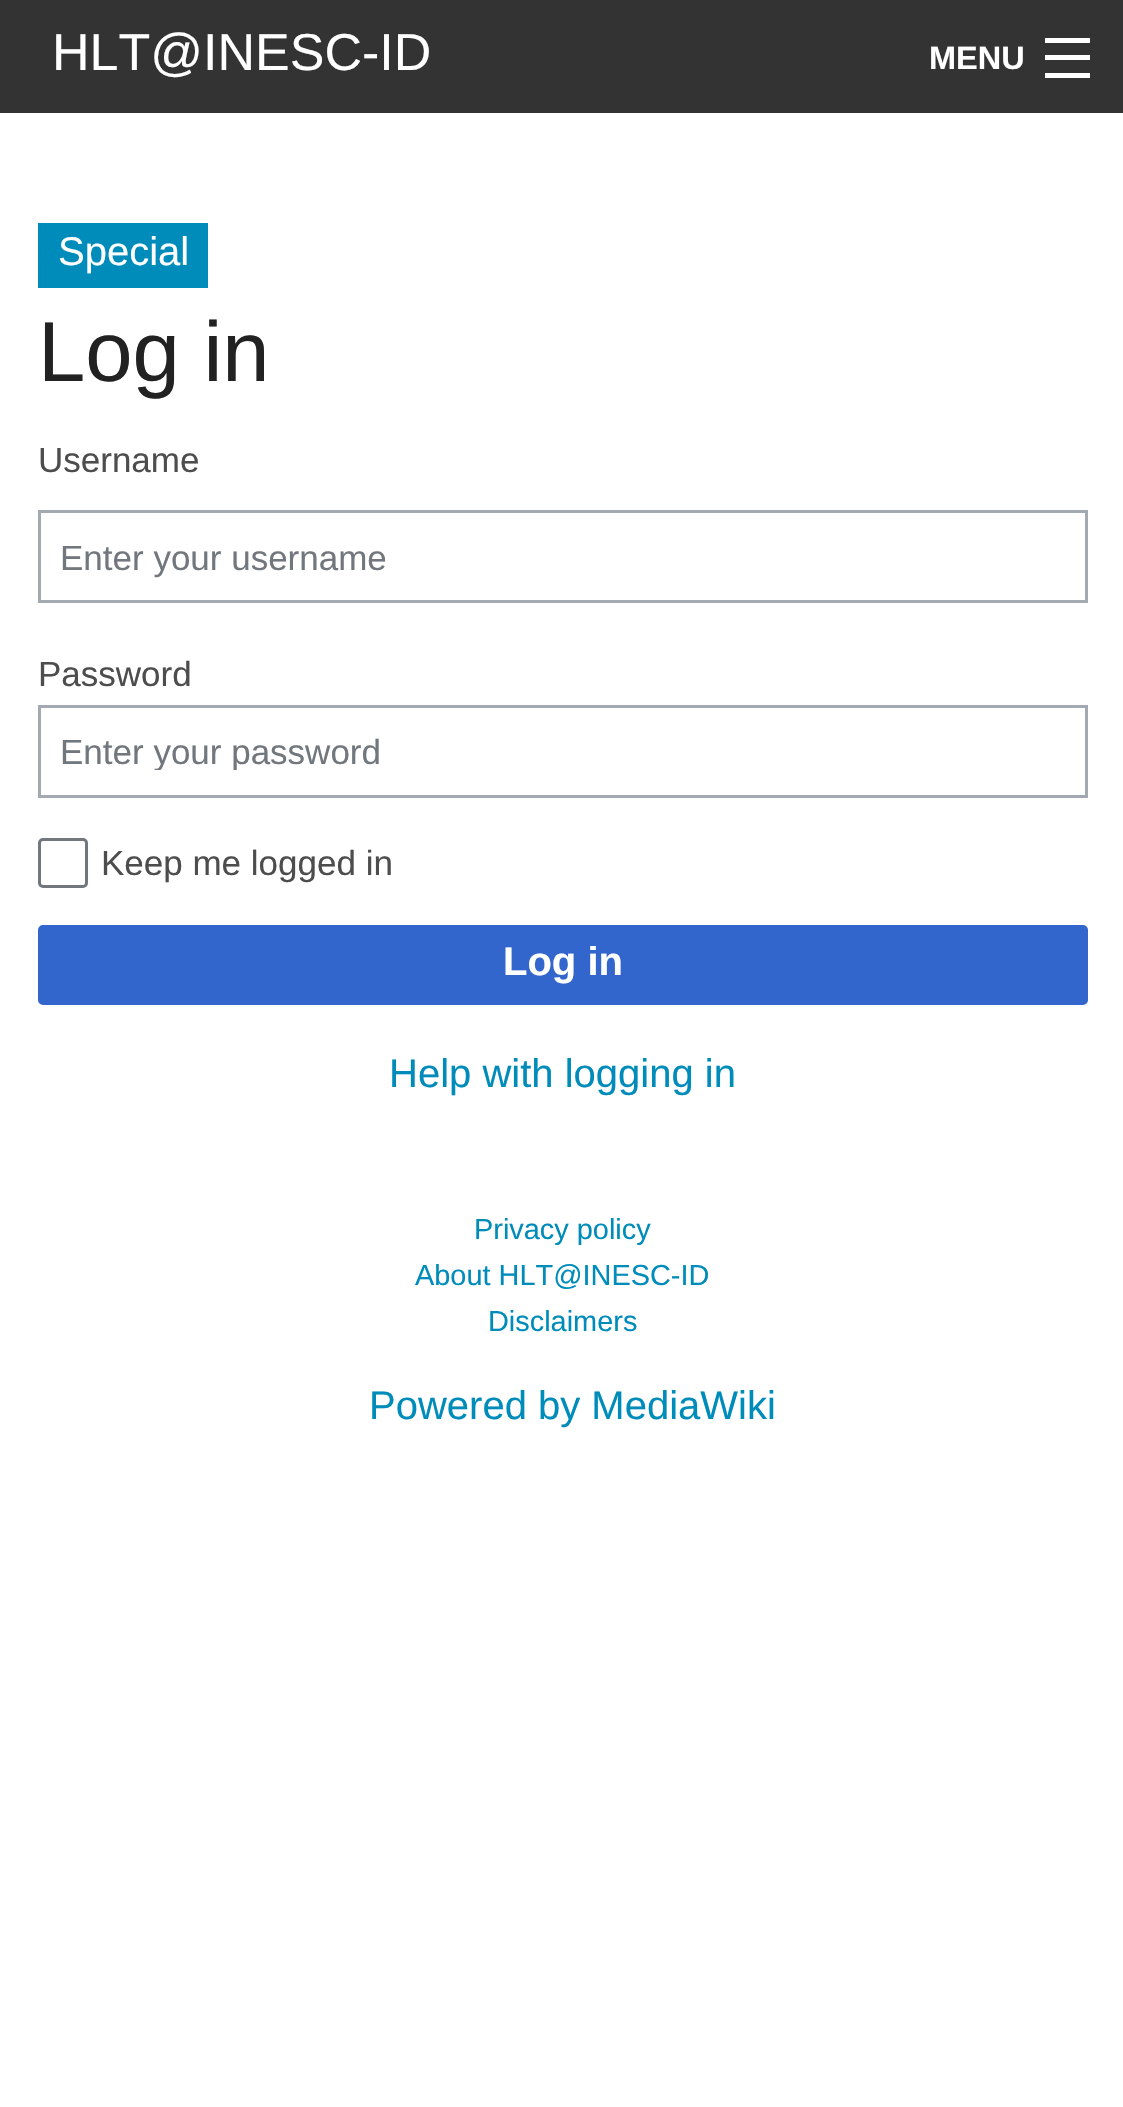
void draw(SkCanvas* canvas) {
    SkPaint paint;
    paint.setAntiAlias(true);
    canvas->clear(0xFFFFFFFF);
    paint.setColor(0xFF333333);
    canvas->drawRect(SkRect::MakeXYWH(0, 0, 1123, 113), paint);
    SkFont font1(fontMgr->matchFamilyStyle("Liberation Sans", SkFontStyle::Normal()), 52);
    font1.setSubpixel(true);
    paint.setColor(0xFFFFFFFF);
    canvas->drawString("HLT@INESC-ID", 52, 70, font1, paint);
    SkFont font2(fontMgr->matchFamilyStyle("Liberation Sans", SkFontStyle::Bold()), 32.5f);
    font2.setSubpixel(true);
    canvas->drawString("MENU", 929, 69, font2, paint);
    canvas->drawRect(SkRect::MakeXYWH(1045, 73, 45, 5), paint);
    canvas->drawRect(SkRect::MakeXYWH(1045, 55, 45, 5), paint);
    canvas->drawRect(SkRect::MakeXYWH(1045, 38, 45, 5), paint);
    paint.setColor(0xFF008CBA);
    canvas->drawRect(SkRect::MakeXYWH(38, 223, 170, 65), paint);
    SkFont font3(fontMgr->matchFamilyStyle("Liberation Sans", SkFontStyle::Normal()), 40);
    font3.setSubpixel(true);
    paint.setColor(0xFFFFFFFF);
    canvas->drawString("Special", 58, 265, font3, paint);
    SkFont font4(fontMgr->matchFamilyStyle("Liberation Sans", SkFontStyle::Normal()), 85);
    font4.setSubpixel(true);
    paint.setColor(0xFF222222);
    canvas->drawString("Log in", 38, 381, font4, paint);
    SkFont font5(fontMgr->matchFamilyStyle("Liberation Sans", SkFontStyle::Normal()), 35);
    font5.setSubpixel(true);
    paint.setColor(0xFF4D4D4D);
    canvas->drawString("Username", 38, 472, font5, paint);
    paint.setStyle(SkPaint::kStroke_Style);
    paint.setStrokeWidth(3);
    paint.setColor(0xFFA2A9B1);
    canvas->drawRect(SkRect::MakeXYWH(39.5f, 511.5f, 1047, 90), paint);
    paint.setStyle(SkPaint::kFill_Style);
    paint.setColor(0xFF72777D);
    canvas->drawString("Enter your username", 60, 570, font5, paint);
    paint.setColor(0xFF4D4D4D);
    canvas->drawString("Password", 38, 686, font5, paint);
    paint.setStyle(SkPaint::kStroke_Style);
    paint.setColor(0xFFA2A9B1);
    canvas->drawRect(SkRect::MakeXYWH(39.5f, 706.5f, 1047, 90), paint);
    canvas->save();
    canvas->clipRect(SkRect::MakeXYWH(60, 730, 1005, 40));
    paint.setStyle(SkPaint::kFill_Style);
    paint.setColor(0xFF72777D);
    canvas->drawString("Enter your password", 60, 764, font5, paint);
    canvas->restore();
    paint.setStyle(SkPaint::kStroke_Style);
    canvas->drawRoundRect(SkRect::MakeXYWH(39.5f, 839.5f, 47, 47), 3.5f, 3.5f, paint);
    paint.setStyle(SkPaint::kFill_Style);
    paint.setColor(0xFF4D4D4D);
    canvas->drawString("Keep me logged in", 101, 875, font5, paint);
    paint.setColor(0xFF3366CC);
    canvas->drawRoundRect(SkRect::MakeXYWH(39.5f, 926.5f, 1047, 77), 3.5f, 3.5f, paint);
    paint.setStyle(SkPaint::kStroke_Style);
    canvas->drawRoundRect(SkRect::MakeXYWH(39.5f, 926.5f, 1047, 77), 3.5f, 3.5f, paint);
    SkFont font6(fontMgr->matchFamilyStyle("Liberation Sans", SkFontStyle::Bold()), 40);
    font6.setSubpixel(true);
    paint.setStyle(SkPaint::kFill_Style);
    paint.setColor(0xFFFFFFFF);
    canvas->drawString("Log in", 503, 975, font6, paint);
    paint.setColor(0xFF008CBA);
    canvas->drawString("Help with logging in", 389, 1087, font3, paint);
    SkFont font7(fontMgr->matchFamilyStyle("Liberation Sans", SkFontStyle::Normal()), 28.9f);
    font7.setSubpixel(true);
    canvas->drawString("Privacy policy", 474, 1239, font7, paint);
    canvas->drawString("About HLT@INESC-ID", 415, 1285, font7, paint);
    canvas->drawString("Disclaimers", 488, 1331, font7, paint);
    canvas->drawString("Powered by MediaWiki", 369, 1419, font3, paint);
}
